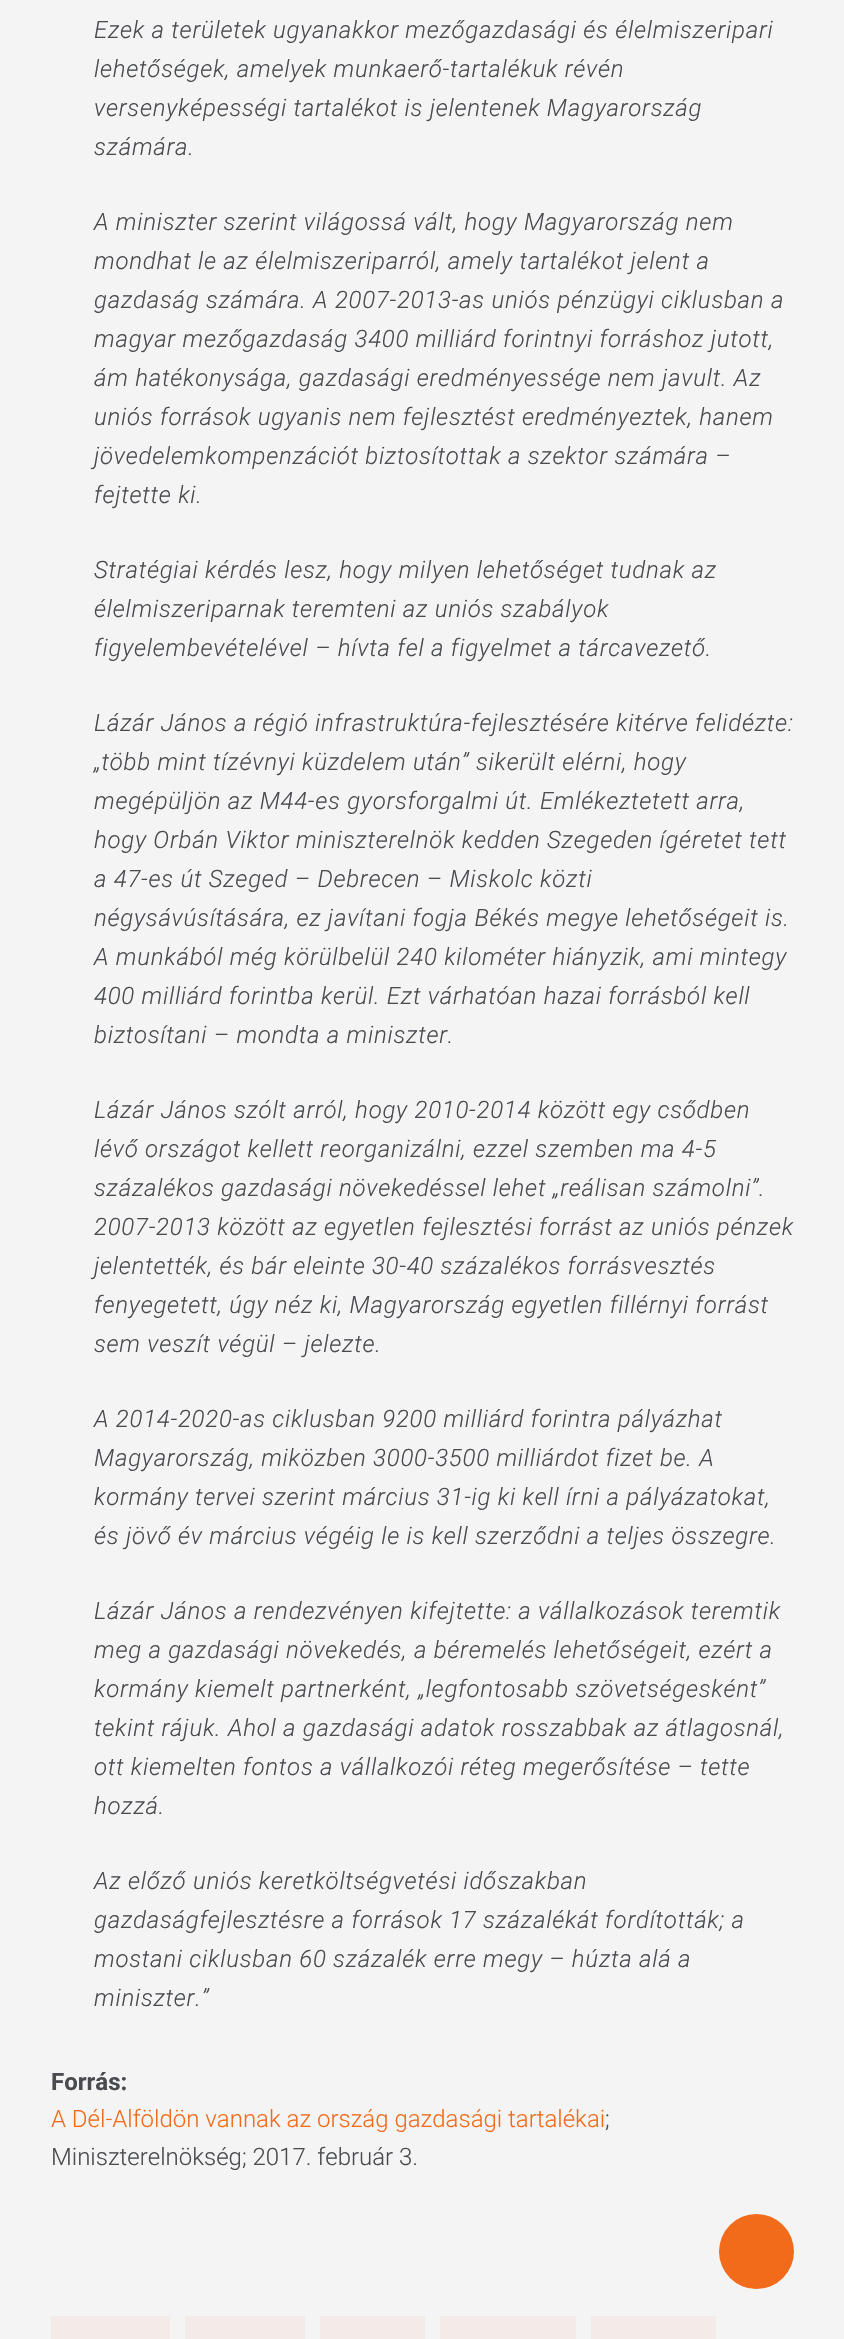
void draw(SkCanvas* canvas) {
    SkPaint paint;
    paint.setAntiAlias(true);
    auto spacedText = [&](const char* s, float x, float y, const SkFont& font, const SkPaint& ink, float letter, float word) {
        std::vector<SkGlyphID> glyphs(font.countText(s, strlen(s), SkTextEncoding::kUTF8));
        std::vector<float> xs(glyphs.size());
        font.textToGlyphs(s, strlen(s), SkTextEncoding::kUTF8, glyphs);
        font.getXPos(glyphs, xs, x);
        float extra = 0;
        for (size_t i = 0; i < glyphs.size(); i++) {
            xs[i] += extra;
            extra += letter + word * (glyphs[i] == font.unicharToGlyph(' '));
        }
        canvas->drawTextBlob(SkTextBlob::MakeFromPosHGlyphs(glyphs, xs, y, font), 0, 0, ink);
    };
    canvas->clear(0xFFF4F4F4);
    SkFont font1(fontMgr->matchFamilyStyle("Roboto", SkFontStyle(300, SkFontStyle::kNormal_Width, SkFontStyle::kItalic_Slant)), 24);
    font1.setSubpixel(true);
    paint.setColor(0xFF494B4F);
    spacedText("Ezek a területek ugyanakkor mezőgazdasági és élelmiszeripari", 94, 38, font1, paint, 0.75f, 0);
    spacedText("lehetőségek, amelyek munkaerő-tartalékuk révén", 94, 77, font1, paint, 0.75f, 0);
    spacedText("versenyképességi tartalékot is jelentenek Magyarország", 94, 116, font1, paint, 0.75f, 0);
    spacedText("számára.", 94, 155, font1, paint, 0.75f, 0);
    spacedText("A miniszter szerint világossá vált, hogy Magyarország nem", 94, 230, font1, paint, 0.75f, 0);
    spacedText("mondhat le az élelmiszeriparról, amely tartalékot jelent a", 94, 269, font1, paint, 0.75f, 0);
    spacedText("gazdaság számára. A 2007-2013-as uniós pénzügyi ciklusban a", 94, 308, font1, paint, 0.75f, 0);
    spacedText("magyar mezőgazdaság 3400 milliárd forintnyi forráshoz jutott,", 94, 347, font1, paint, 0.75f, 0);
    spacedText("ám hatékonysága, gazdasági eredményessége nem javult. Az", 94, 386, font1, paint, 0.75f, 0);
    spacedText("uniós források ugyanis nem fejlesztést eredményeztek, hanem", 94, 425, font1, paint, 0.75f, 0);
    spacedText("jövedelemkompenzációt biztosítottak a szektor számára –", 94, 464, font1, paint, 0.75f, 0);
    spacedText("fejtette ki.", 94, 503, font1, paint, 0.75f, 0);
    spacedText("Stratégiai kérdés lesz, hogy milyen lehetőséget tudnak az", 94, 578, font1, paint, 0.75f, 0);
    spacedText("élelmiszeriparnak teremteni az uniós szabályok", 94, 617, font1, paint, 0.75f, 0);
    spacedText("figyelembevételével – hívta fel a figyelmet a tárcavezető.", 94, 656, font1, paint, 0.75f, 0);
    spacedText("Lázár János a régió infrastruktúra-fejlesztésére kitérve felidézte:", 94, 731, font1, paint, 0.75f, 0);
    spacedText("„több mint tízévnyi küzdelem után” sikerült elérni, hogy", 94, 770, font1, paint, 0.75f, 0);
    spacedText("megépüljön az M44-es gyorsforgalmi út. Emlékeztetett arra,", 94, 809, font1, paint, 0.75f, 0);
    spacedText("hogy Orbán Viktor miniszterelnök kedden Szegeden ígéretet tett", 94, 848, font1, paint, 0.75f, 0);
    spacedText("a 47-es út Szeged – Debrecen – Miskolc közti", 94, 887, font1, paint, 0.75f, 0);
    spacedText("négysávúsítására, ez javítani fogja Békés megye lehetőségeit is.", 94, 926, font1, paint, 0.75f, 0);
    spacedText("A munkából még körülbelül 240 kilométer hiányzik, ami mintegy", 94, 965, font1, paint, 0.75f, 0);
    spacedText("400 milliárd forintba kerül. Ezt várhatóan hazai forrásból kell", 94, 1004, font1, paint, 0.75f, 0);
    spacedText("biztosítani – mondta a miniszter.", 94, 1043, font1, paint, 0.75f, 0);
    spacedText("Lázár János szólt arról, hogy 2010-2014 között egy csődben", 94, 1118, font1, paint, 0.75f, 0);
    spacedText("lévő országot kellett reorganizálni, ezzel szemben ma 4-5", 94, 1157, font1, paint, 0.75f, 0);
    spacedText("százalékos gazdasági növekedéssel lehet „reálisan számolni”.", 94, 1196, font1, paint, 0.75f, 0);
    spacedText("2007-2013 között az egyetlen fejlesztési forrást az uniós pénzek", 94, 1235, font1, paint, 0.75f, 0);
    spacedText("jelentették, és bár eleinte 30-40 százalékos forrásvesztés", 94, 1274, font1, paint, 0.75f, 0);
    spacedText("fenyegetett, úgy néz ki, Magyarország egyetlen fillérnyi forrást", 94, 1313, font1, paint, 0.75f, 0);
    spacedText("sem veszít végül – jelezte.", 94, 1352, font1, paint, 0.75f, 0);
    spacedText("A 2014-2020-as ciklusban 9200 milliárd forintra pályázhat", 94, 1427, font1, paint, 0.75f, 0);
    spacedText("Magyarország, miközben 3000-3500 milliárdot fizet be. A", 94, 1466, font1, paint, 0.75f, 0);
    spacedText("kormány tervei szerint március 31-ig ki kell írni a pályázatokat,", 94, 1505, font1, paint, 0.75f, 0);
    spacedText("és jövő év március végéig le is kell szerződni a teljes összegre.", 94, 1544, font1, paint, 0.75f, 0);
    spacedText("Lázár János a rendezvényen kifejtette: a vállalkozások teremtik", 94, 1619, font1, paint, 0.75f, 0);
    spacedText("meg a gazdasági növekedés, a béremelés lehetőségeit, ezért a", 94, 1658, font1, paint, 0.75f, 0);
    spacedText("kormány kiemelt partnerként, „legfontosabb szövetségesként”", 94, 1697, font1, paint, 0.75f, 0);
    spacedText("tekint rájuk. Ahol a gazdasági adatok rosszabbak az átlagosnál,", 94, 1736, font1, paint, 0.75f, 0);
    spacedText("ott kiemelten fontos a vállalkozói réteg megerősítése – tette", 94, 1775, font1, paint, 0.75f, 0);
    spacedText("hozzá.", 94, 1814, font1, paint, 0.75f, 0);
    spacedText("Az előző uniós keretköltségvetési időszakban", 94, 1889, font1, paint, 0.75f, 0);
    spacedText("gazdaságfejlesztésre a források 17 százalékát fordították; a", 94, 1928, font1, paint, 0.75f, 0);
    spacedText("mostani ciklusban 60 százalék erre megy – húzta alá a", 94, 1967, font1, paint, 0.75f, 0);
    spacedText("miniszter.”", 94, 2006, font1, paint, 0.75f, 0);
    SkFont font2(fontMgr->matchFamilyStyle("Roboto", SkFontStyle::Bold()), 24);
    font2.setSubpixel(true);
    canvas->drawString("Forrás:", 51, 2090, font2, paint);
    SkFont font3(fontMgr->matchFamilyStyle("Roboto", SkFontStyle(300, SkFontStyle::kNormal_Width, SkFontStyle::kUpright_Slant)), 24);
    font3.setSubpixel(true);
    paint.setColor(0xFFF26B1A);
    canvas->drawString("A Dél-Alföldön vannak az ország gazdasági tartalékai", 51, 2127, font3, paint);
    paint.setColor(0xFF494B4F);
    canvas->drawString(";", 605, 2127, font3, paint);
    canvas->drawString("Miniszterelnökség; 2017. február 3.", 51, 2165, font3, paint);
    paint.setColor(0x0FF26B1A);
    canvas->drawRect(SkRect::MakeXYWH(51, 2316, 119, 23), paint);
    canvas->drawRect(SkRect::MakeXYWH(185, 2316, 120, 23), paint);
    canvas->drawRect(SkRect::MakeXYWH(320, 2316, 105, 23), paint);
    canvas->drawRect(SkRect::MakeXYWH(440, 2316, 136, 23), paint);
    canvas->drawRect(SkRect::MakeXYWH(591, 2316, 125, 23), paint);
    paint.setColor(0xFFF26B1A);
    canvas->drawCircle(756.5f, 2251.5f, 37.5f, paint);
}
